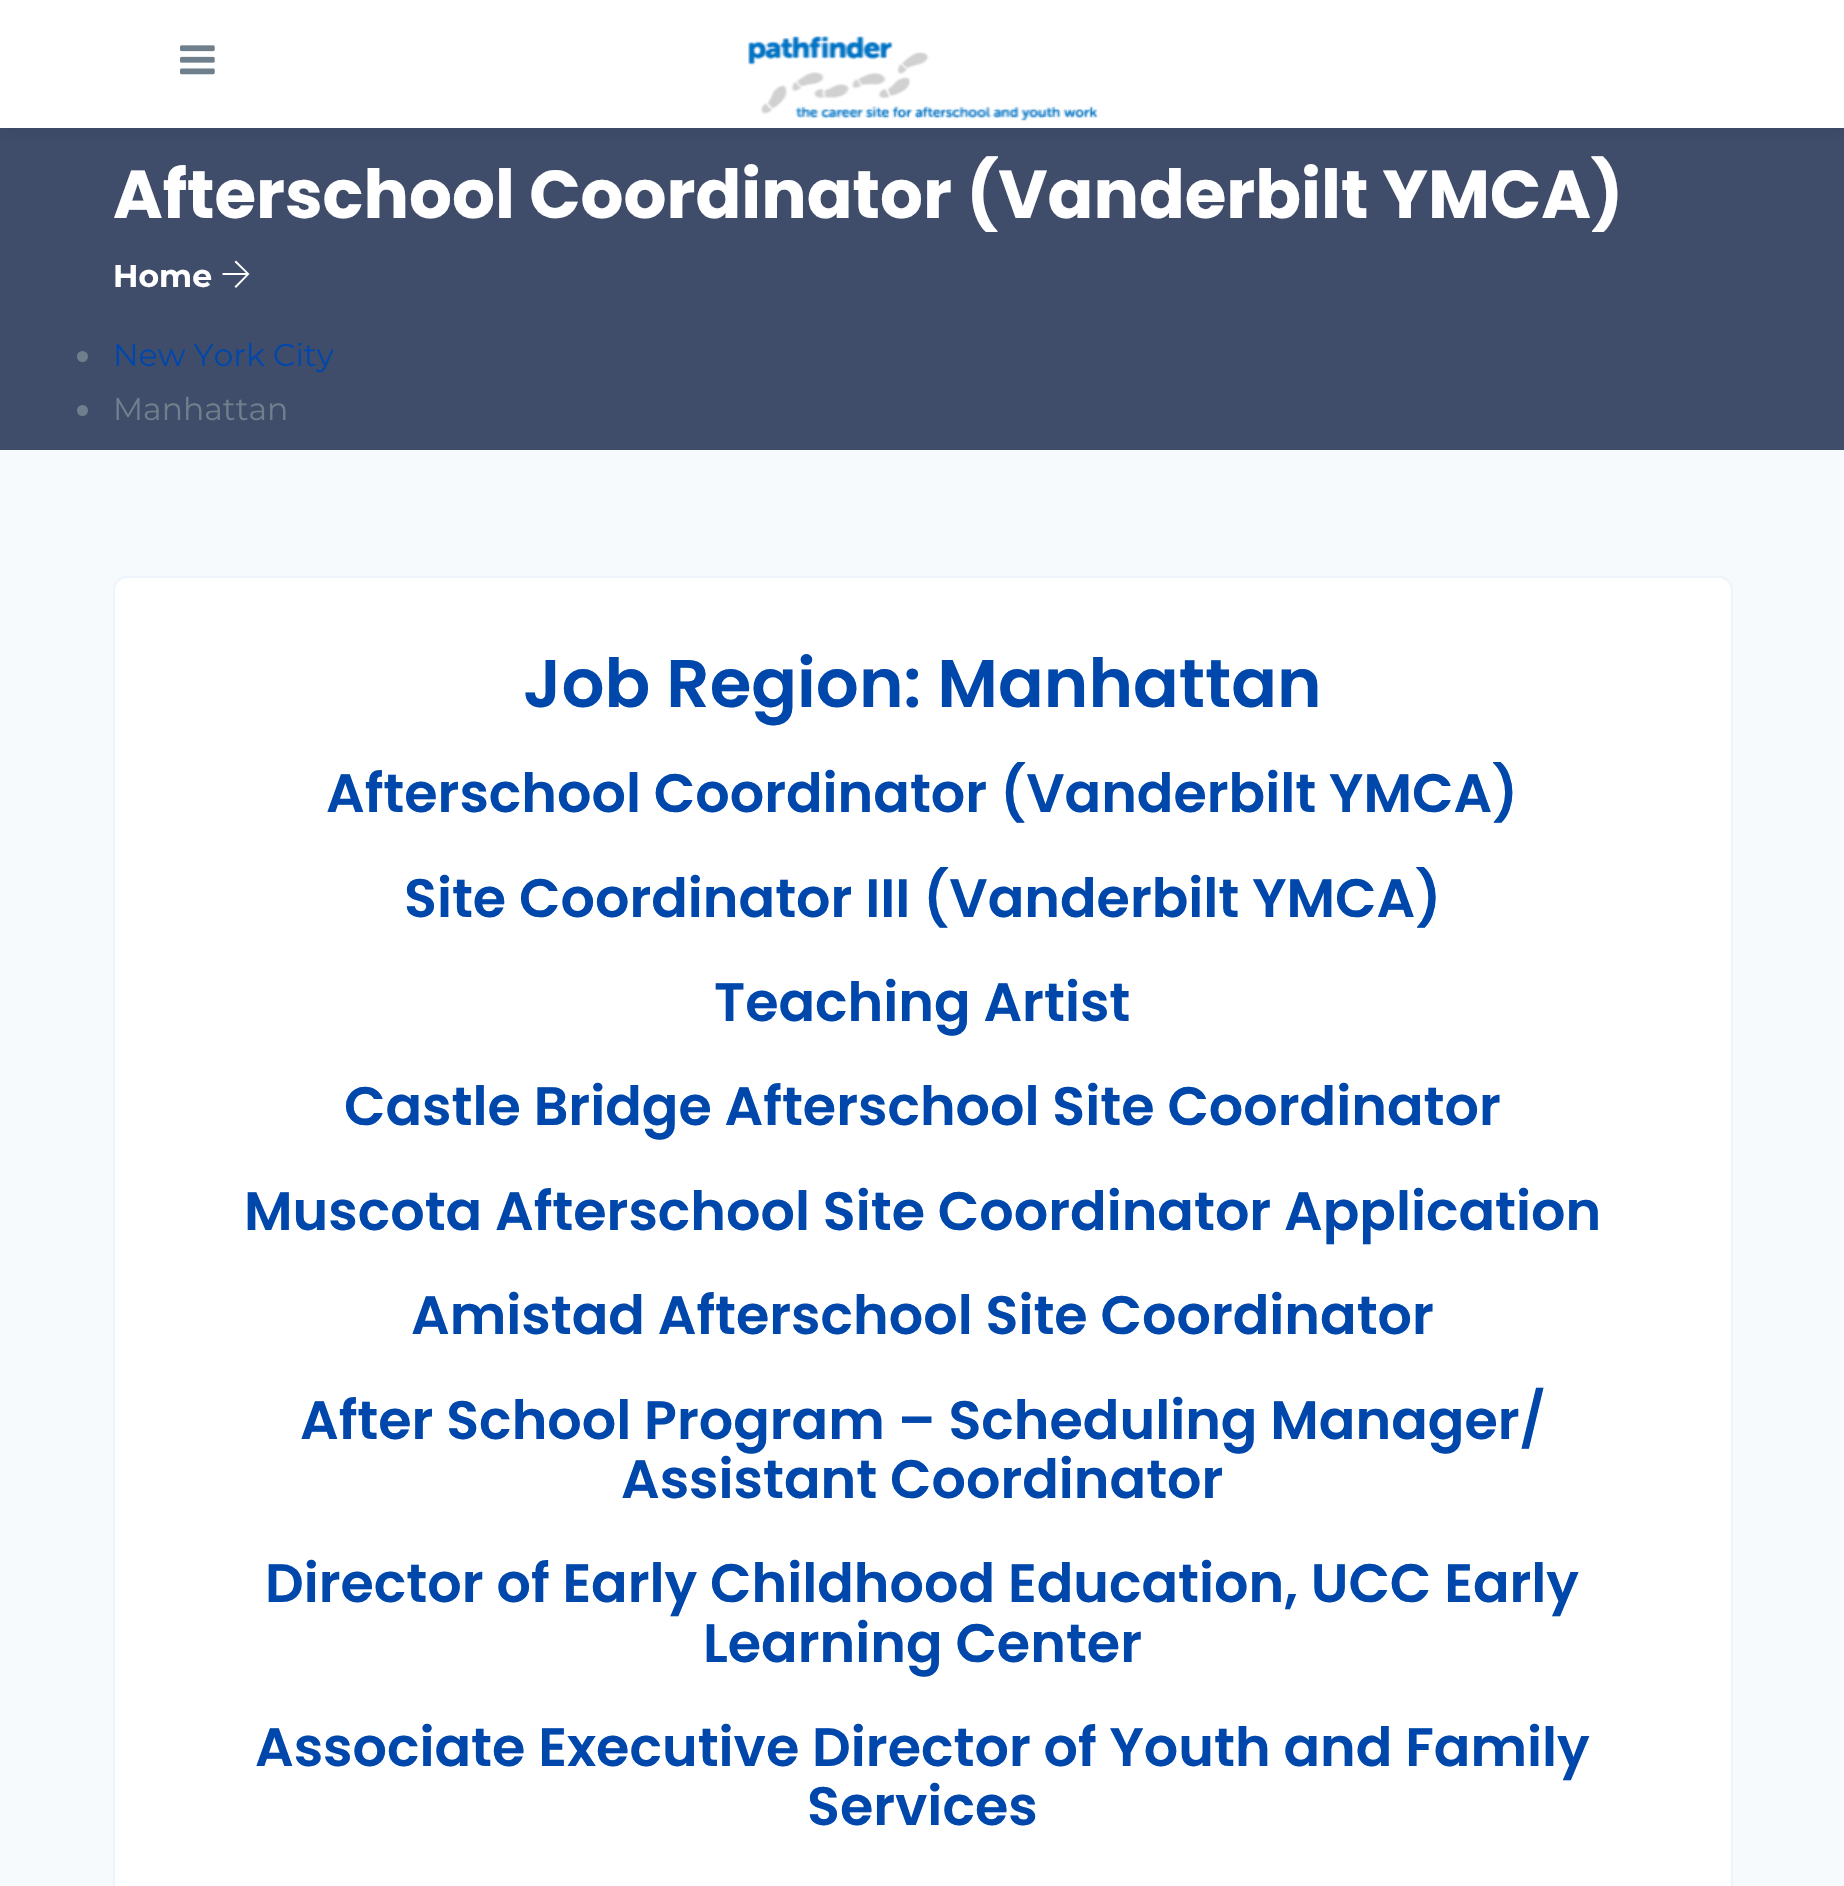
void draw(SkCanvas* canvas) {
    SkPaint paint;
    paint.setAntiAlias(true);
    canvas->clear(0xFFF6FAFD);
    paint.setColor(0xFF3F4C6A);
    canvas->drawRect(SkRect::MakeXYWH(0, 128, 1844, 322), paint);
    paint.setColor(0x0D000000);
    paint.setMaskFilter(SkMaskFilter::MakeBlur(kNormal_SkBlurStyle, 7));
    canvas->drawRect(SkRect::MakeXYWH(0, 5, 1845, 128), paint);
    paint.setMaskFilter(nullptr);
    paint.setColor(0xFFFFFFFF);
    canvas->drawRect(SkRect::MakeXYWH(0, 0, 1844, 128), paint);
    canvas->drawImageRect(SkImages::DeferredFromEncodedData(SkData::MakeFromFileName("img1.png")), SkRect::MakeXYWH(180, 45, 35, 30), SkSamplingOptions());
    canvas->drawImageRect(SkImages::DeferredFromEncodedData(SkData::MakeFromFileName("img2.png")), SkRect::MakeXYWH(748, 35, 351, 87), SkSamplingOptions());
    SkFont font1(fontMgr->matchFamilyStyle("Poppins", SkFontStyle::Bold()), 67.5f);
    font1.setSubpixel(true);
    canvas->drawString("Afterschool Coordinator (Vanderbilt YMCA)", 113, 218, font1, paint);
    SkFont font2(fontMgr->matchFamilyStyle("Montserrat", SkFontStyle::Bold()), 31.5f);
    font2.setSubpixel(true);
    canvas->drawString("Home", 113, 287, font2, paint);
    canvas->drawPath(SkPathBuilder().moveTo(249.5f, 274).lineTo(236, 288).lineTo(234.5f, 286.5f).lineTo(246, 275).lineTo(222.5f, 275).lineTo(222.5f, 273).lineTo(246, 273).lineTo(234.5f, 262).lineTo(236, 260.5f).close().detach(), paint);
    paint.setColor(0xFF707F8C);
    canvas->drawCircle(82.5f, 356.5f, 5.5f, paint);
    SkFont font3(fontMgr->matchFamilyStyle("Montserrat", SkFontStyle::Normal()), 31.5f);
    font3.setSubpixel(true);
    paint.setColor(0xFF0047AB);
    canvas->drawString("New York City", 113, 366, font3, paint);
    paint.setColor(0xFF707F8C);
    canvas->drawCircle(82.5f, 410.5f, 5.5f, paint);
    canvas->drawString("Manhattan", 113, 420, font3, paint);
    paint.setColor(0xFFFFFFFF);
    canvas->drawRoundRect(SkRect::MakeXYWH(114, 577, 1618, 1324), 13, 13, paint);
    paint.setStyle(SkPaint::kStroke_Style);
    paint.setStrokeWidth(2);
    paint.setColor(0xFFEEF4F9);
    canvas->drawRoundRect(SkRect::MakeXYWH(114, 577, 1618, 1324), 13, 13, paint);
    SkFont font4(fontMgr->matchFamilyStyle("Poppins", SkFontStyle(600, SkFontStyle::kNormal_Width, SkFontStyle::kUpright_Slant)), 67.5f);
    font4.setSubpixel(true);
    paint.setStyle(SkPaint::kFill_Style);
    paint.setColor(0xFF0047AB);
    canvas->drawString("Job Region: Manhattan", 523, 707, font4, paint);
    SkFont font5(fontMgr->matchFamilyStyle("Poppins", SkFontStyle(600, SkFontStyle::kNormal_Width, SkFontStyle::kUpright_Slant)), 54);
    font5.setSubpixel(true);
    canvas->drawString("Afterschool Coordinator (Vanderbilt YMCA)", 326, 812, font5, paint);
    canvas->drawString("Site Coordinator III (Vanderbilt YMCA)", 404, 917, font5, paint);
    canvas->drawString("Teaching Artist", 714, 1021, font5, paint);
    canvas->drawString("Castle Bridge Afterschool Site Coordinator", 344, 1125, font5, paint);
    canvas->drawString("Muscota Afterschool Site Coordinator Application", 244, 1230, font5, paint);
    canvas->drawString("Amistad Afterschool Site Coordinator", 411, 1334, font5, paint);
    canvas->drawString("After School Program – Scheduling Manager/", 300, 1439, font5, paint);
    canvas->drawString("Assistant Coordinator", 621, 1498, font5, paint);
    canvas->drawString("Director of Early Childhood Education, UCC Early", 265, 1602, font5, paint);
    canvas->drawString("Learning Center", 703, 1662, font5, paint);
    canvas->drawString("Associate Executive Director of Youth and Family", 255, 1766, font5, paint);
    canvas->drawString("Services", 807, 1825, font5, paint);
}
